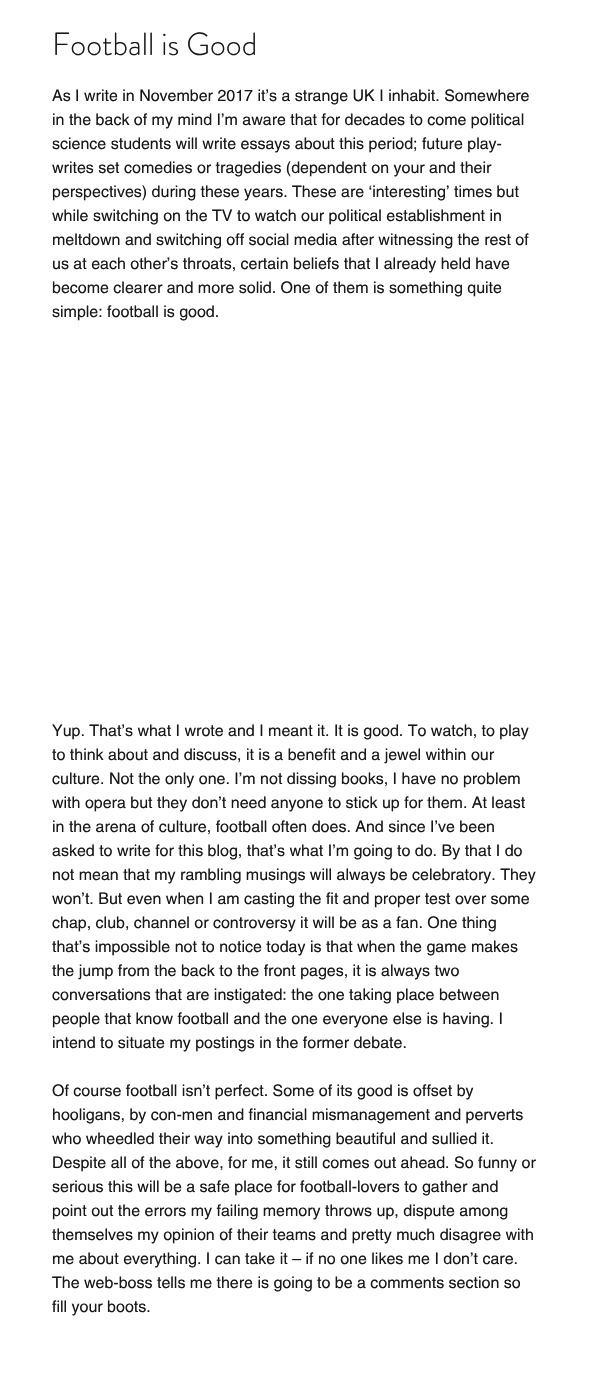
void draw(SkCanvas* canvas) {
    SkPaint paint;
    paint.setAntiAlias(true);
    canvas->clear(0xFFFFFFFF);
    SkFont font1(fontMgr->matchFamilyStyle("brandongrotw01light", SkFontStyle(300, SkFontStyle::kNormal_Width, SkFontStyle::kUpright_Slant)), 32);
    font1.setSubpixel(true);
    paint.setColor(0xFF181818);
    canvas->drawString("Football is Good", 52, 55, font1, paint);
    SkFont font2(fontMgr->matchFamilyStyle("helvetica", SkFontStyle::Normal()), 16);
    font2.setSubpixel(true);
    canvas->drawString("As I write in November 2017 it’s a strange UK I inhabit. Somewhere", 52, 101, font2, paint);
    canvas->drawString("in the back of my mind I’m aware that for decades to come political", 52, 125, font2, paint);
    canvas->drawString("science students will write essays about this period; future play-", 52, 149, font2, paint);
    canvas->drawString("writes set comedies or tragedies (dependent on your and their", 52, 173, font2, paint);
    canvas->drawString("perspectives) during these years. These are ‘interesting’ times but", 52, 197, font2, paint);
    canvas->drawString("while switching on the TV to watch our political establishment in", 52, 221, font2, paint);
    canvas->drawString("meltdown and switching off social media after witnessing the rest of", 52, 245, font2, paint);
    canvas->drawString("us at each other’s throats, certain beliefs that I already held have", 52, 269, font2, paint);
    canvas->drawString("become clearer and more solid. One of them is something quite", 52, 293, font2, paint);
    canvas->drawString("simple: football is good.", 52, 317, font2, paint);
    canvas->drawString("Yup. That’s what I wrote and I meant it. It is good. To watch, to play", 52, 736, font2, paint);
    canvas->drawString("to think about and discuss, it is a benefit and a jewel within our", 52, 760, font2, paint);
    canvas->drawString("culture. Not the only one. I’m not dissing books, I have no problem", 52, 784, font2, paint);
    canvas->drawString("with opera but they don’t need anyone to stick up for them. At least", 52, 808, font2, paint);
    canvas->drawString("in the arena of culture, football often does. And since I’ve been", 52, 832, font2, paint);
    canvas->drawString("asked to write for this blog, that’s what I’m going to do. By that I do", 52, 856, font2, paint);
    canvas->drawString("not mean that my rambling musings will always be celebratory. They", 52, 880, font2, paint);
    canvas->drawString("won’t. But even when I am casting the fit and proper test over some", 52, 904, font2, paint);
    canvas->drawString("chap, club, channel or controversy it will be as a fan. One thing", 52, 928, font2, paint);
    canvas->drawString("that’s impossible not to notice today is that when the game makes", 52, 952, font2, paint);
    canvas->drawString("the jump from the back to the front pages, it is always two", 52, 976, font2, paint);
    canvas->drawString("conversations that are instigated: the one taking place between", 52, 1000, font2, paint);
    canvas->drawString("people that know football and the one everyone else is having. I", 52, 1024, font2, paint);
    canvas->drawString("intend to situate my postings in the former debate.", 52, 1048, font2, paint);
    canvas->drawString("Of course football isn’t perfect. Some of its good is offset by", 52, 1096, font2, paint);
    canvas->drawString("hooligans, by con-men and financial mismanagement and perverts", 52, 1120, font2, paint);
    canvas->drawString("who wheedled their way into something beautiful and sullied it.", 52, 1144, font2, paint);
    canvas->drawString("Despite all of the above, for me, it still comes out ahead. So funny or", 52, 1168, font2, paint);
    canvas->drawString("serious this will be a safe place for football-lovers to gather and", 52, 1192, font2, paint);
    canvas->drawString("point out the errors my failing memory throws up, dispute among", 52, 1216, font2, paint);
    canvas->drawString("themselves my opinion of their teams and pretty much disagree with", 52, 1240, font2, paint);
    canvas->drawString("me about everything. I can take it – if no one likes me I don’t care.", 52, 1264, font2, paint);
    canvas->drawString("The web-boss tells me there is going to be a comments section so", 52, 1288, font2, paint);
    canvas->drawString("fill your boots.", 52, 1312, font2, paint);
}
